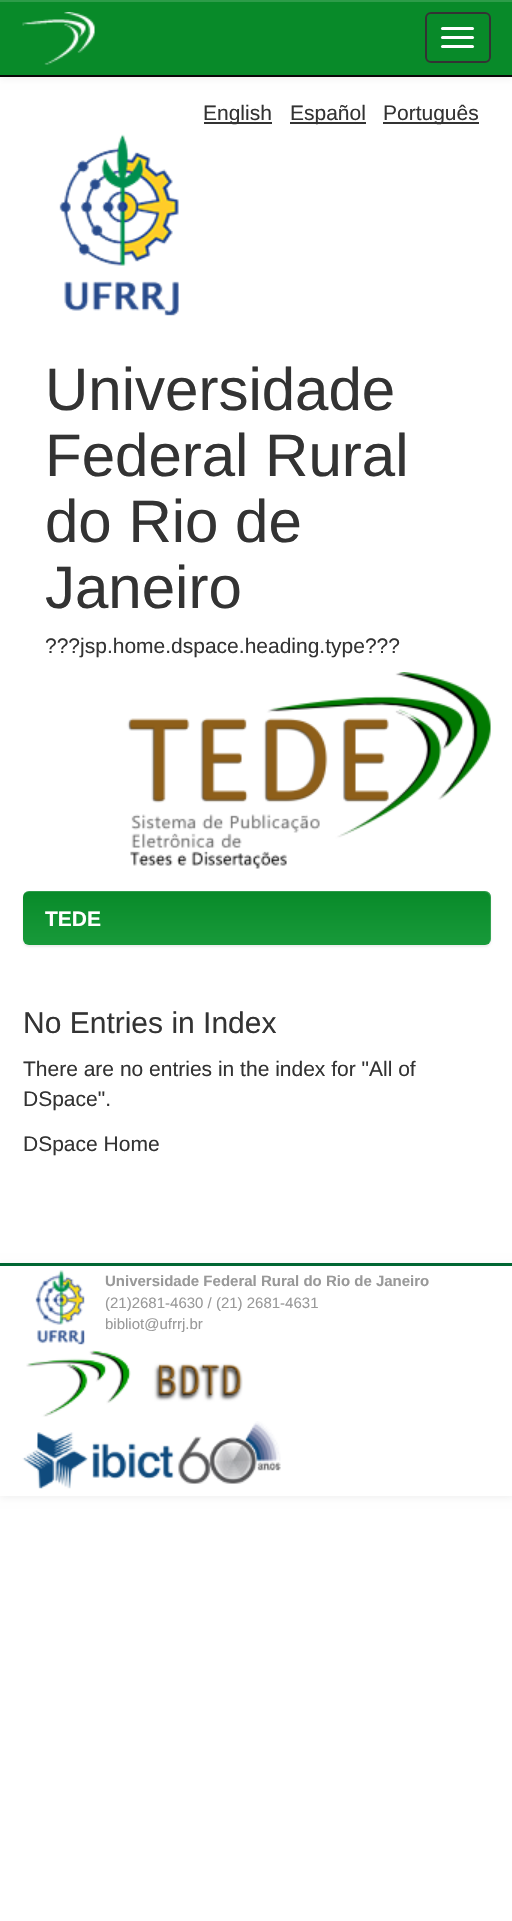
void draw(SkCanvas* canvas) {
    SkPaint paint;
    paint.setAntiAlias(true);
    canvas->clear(0xFFFFFFFF);
    paint.setColor(0x12000000);
    paint.setMaskFilter(SkMaskFilter::MakeBlur(kNormal_SkBlurStyle, 4));
    canvas->drawRect(SkRect::MakeXYWH(0, 2, 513, 76), paint);
    paint.setMaskFilter(nullptr);
    paint.setColor(0xFF088A29);
    canvas->drawRect(SkRect::MakeXYWH(0, 2, 512, 73), paint);
    paint.setColor(0xFF2D9C49);
    canvas->drawRect(SkRect::MakeXYWH(0, 0, 512, 2), paint);
    paint.setColor(0xFF080808);
    canvas->drawRect(SkRect::MakeXYWH(0, 75, 512, 2), paint);
    canvas->drawImageRect(SkImages::DeferredFromEncodedData(SkData::MakeFromFileName("img1.png")), SkRect::MakeXYWH(22, 12, 73, 53), SkSamplingOptions());
    paint.setStyle(SkPaint::kStroke_Style);
    paint.setStrokeWidth(2);
    paint.setColor(0xFF333333);
    canvas->drawRoundRect(SkRect::MakeXYWH(426, 13, 64, 49), 5, 5, paint);
    paint.setStyle(SkPaint::kFill_Style);
    paint.setColor(0xFFFFFFFF);
    canvas->drawRoundRect(SkRect::MakeXYWH(441, 27, 33, 3), 1.5f, 1.5f, paint);
    canvas->drawRoundRect(SkRect::MakeXYWH(441, 36, 33, 3), 1.5f, 1.5f, paint);
    canvas->drawRoundRect(SkRect::MakeXYWH(441, 45, 33, 3), 1.5f, 1.5f, paint);
    paint.setColor(0xFF333333);
    canvas->drawRect(SkRect::MakeXYWH(204, 122, 68, 2), paint);
    SkFont font1(fontMgr->matchFamilyStyle("Liberation Sans", SkFontStyle::Normal()), 21);
    font1.setSubpixel(true);
    canvas->drawString("English", 203, 120, font1, paint);
    canvas->drawRect(SkRect::MakeXYWH(290, 122, 76, 2), paint);
    canvas->drawString("Español", 290, 120, font1, paint);
    canvas->drawRect(SkRect::MakeXYWH(383, 122, 96, 2), paint);
    canvas->drawString("Português", 383, 120, font1, paint);
    canvas->drawImageRect(SkImages::DeferredFromEncodedData(SkData::MakeFromFileName("img2.png")), SkRect::MakeXYWH(59, 134, 120, 182), SkSamplingOptions());
    SkFont font2(fontMgr->matchFamilyStyle("Liberation Sans", SkFontStyle::Normal()), 60);
    font2.setSubpixel(true);
    canvas->drawString("Universidade", 45, 410, font2, paint);
    canvas->drawString("Federal Rural", 45, 476, font2, paint);
    canvas->drawString("do Rio de", 45, 542, font2, paint);
    canvas->drawString("Janeiro", 45, 608, font2, paint);
    canvas->drawString("?\077?jsp.home.dspace.heading.type?\077?", 45, 653, font1, paint);
    canvas->drawImageRect(SkImages::DeferredFromEncodedData(SkData::MakeFromFileName("img3.png")), SkRect::MakeXYWH(127, 672, 364, 197), SkSamplingOptions());
    paint.setColor(0x12000000);
    paint.setMaskFilter(SkMaskFilter::MakeBlur(kNormal_SkBlurStyle, 1));
    canvas->drawRoundRect(SkRect::MakeXYWH(23, 893, 468, 54), 6, 6, paint);
    paint.setMaskFilter(nullptr);
    {
        const SkColor colors[] = {0xFF088A29, 0xFF189A3A};
        const float stops[] = {0, 1};
        const SkPoint ends[] = {{257, 891}, {257, 945}};
        paint.setShader(SkGradientShader::MakeLinear(ends, colors, stops, 2, SkTileMode::kClamp));
        paint.setAlpha(255);
    }
    canvas->drawRoundRect(SkRect::MakeXYWH(23, 891, 468, 54), 6, 6, paint);
    paint.setShader(nullptr);
    paint.setColor(0x26FFFFFF);
    canvas->drawPath(SkPathBuilder().moveTo(28, 892).lineTo(484, 892).cubicTo(488, 892, 490, 895, 490, 898).lineTo(490, 940).lineTo(489, 943).cubicTo(490, 942, 491, 941, 491, 939).lineTo(491, 897).cubicTo(491, 894, 488, 891, 485, 891).lineTo(29, 891).cubicTo(27, 891, 25, 892, 24, 894).cubicTo(25, 893, 27, 892, 28, 892).close().detach(), paint);
    SkFont font3(fontMgr->matchFamilyStyle("Liberation Sans", SkFontStyle::Bold()), 21);
    font3.setSubpixel(true);
    paint.setColor(0xFFFFFFFF);
    canvas->drawString("TEDE", 45, 926, font3, paint);
    SkFont font4(fontMgr->matchFamilyStyle("Liberation Sans", SkFontStyle::Normal()), 30);
    font4.setSubpixel(true);
    paint.setColor(0xFF333333);
    canvas->drawString("No Entries in Index", 23, 1033, font4, paint);
    canvas->drawString("There are no entries in the index for \"All of", 23, 1076, font1, paint);
    canvas->drawString("DSpace\".", 23, 1106, font1, paint);
    canvas->drawString("DSpace Home", 23, 1151, font1, paint);
    paint.setColor(0x12000000);
    paint.setMaskFilter(SkMaskFilter::MakeBlur(kNormal_SkBlurStyle, 4));
    canvas->drawRect(SkRect::MakeXYWH(0, 1265, 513, 232), paint);
    paint.setMaskFilter(nullptr);
    paint.setColor(0xFFFFFFFF);
    canvas->drawRect(SkRect::MakeXYWH(0, 1266, 512, 230), paint);
    paint.setColor(0xFF006633);
    canvas->drawRect(SkRect::MakeXYWH(0, 1263, 512, 3), paint);
    canvas->drawImageRect(SkImages::DeferredFromEncodedData(SkData::MakeFromFileName("img4.png")), SkRect::MakeXYWH(35, 1270, 50, 75), SkSamplingOptions());
    SkFont font5(fontMgr->matchFamilyStyle("Liberation Sans", SkFontStyle::Bold()), 15);
    font5.setSubpixel(true);
    paint.setColor(0xFF999999);
    canvas->drawString("Universidade Federal Rural do Rio de Janeiro", 105, 1286, font5, paint);
    SkFont font6(fontMgr->matchFamilyStyle("Liberation Sans", SkFontStyle::Normal()), 15);
    font6.setSubpixel(true);
    canvas->drawString("(21)2681-4630 / (21) 2681-4631", 105, 1308, font6, paint);
    canvas->drawString("bibliot@ufrrj.br", 105, 1329, font6, paint);
    canvas->drawImageRect(SkImages::DeferredFromEncodedData(SkData::MakeFromFileName("img5.png")), SkRect::MakeXYWH(26, 1350, 217, 67), SkSamplingOptions());
    canvas->drawImageRect(SkImages::DeferredFromEncodedData(SkData::MakeFromFileName("img6.png")), SkRect::MakeXYWH(22, 1421, 259, 68), SkSamplingOptions());
}
